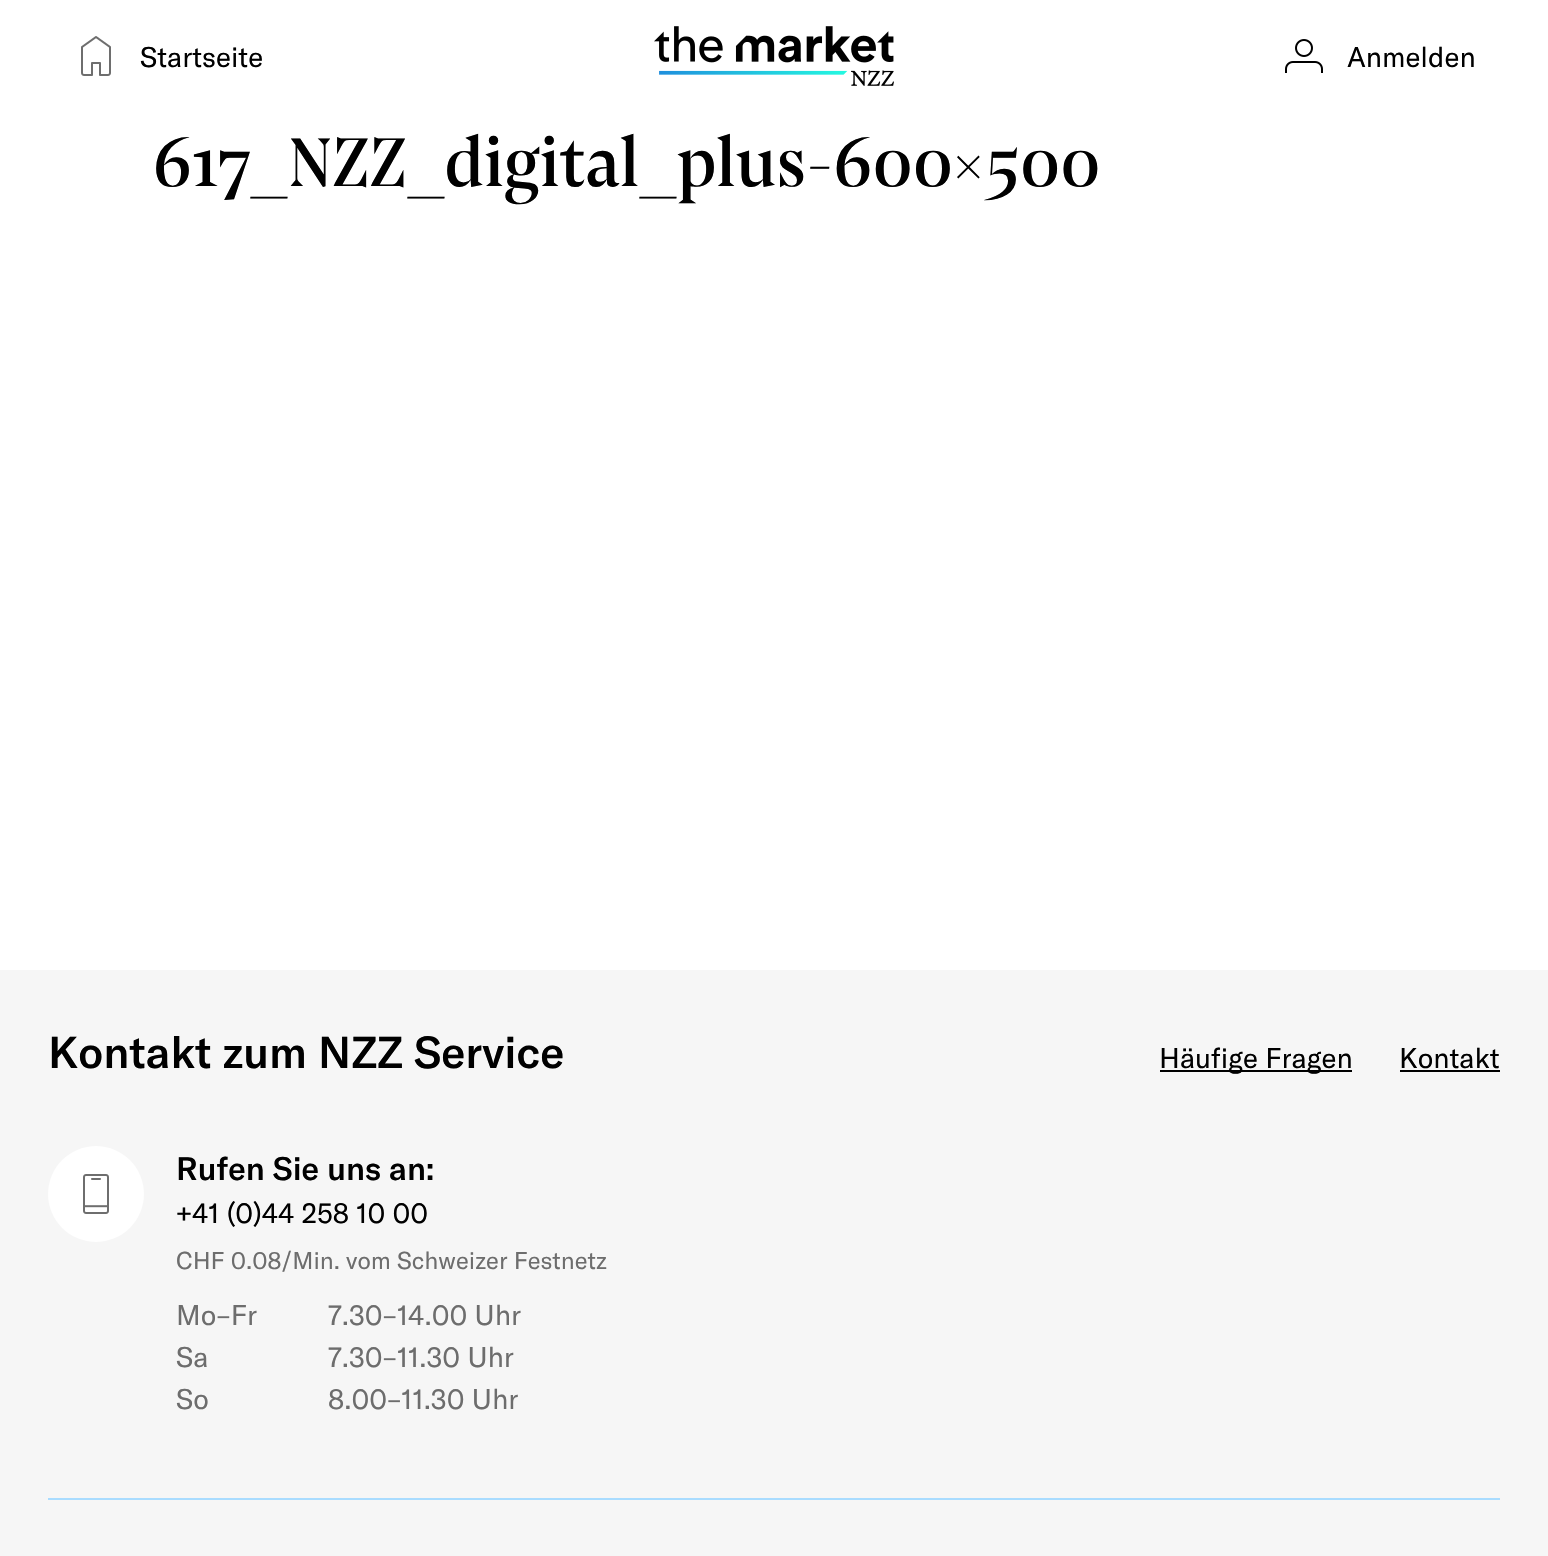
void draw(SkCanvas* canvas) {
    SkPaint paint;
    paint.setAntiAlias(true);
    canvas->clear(0xFFFFFFFF);
    canvas->drawImageRect(SkImages::DeferredFromEncodedData(SkData::MakeFromFileName("img1.png")), SkRect::MakeXYWH(81, 36, 30, 40), SkSamplingOptions());
    SkFont font1(fontMgr->matchFamilyStyle("GT America", SkFontStyle::Normal()), 28);
    font1.setSubpixel(true);
    paint.setColor(0xFF000000);
    canvas->drawString("Startseite", 140, 67, font1, paint);
    canvas->drawImageRect(SkImages::DeferredFromEncodedData(SkData::MakeFromFileName("img2.png")), SkRect::MakeXYWH(654, 26, 240, 60), SkSamplingOptions());
    canvas->drawImageRect(SkImages::DeferredFromEncodedData(SkData::MakeFromFileName("img3.png")), SkRect::MakeXYWH(1285, 39, 38, 34), SkSamplingOptions());
    canvas->drawString("Anmelden", 1347, 67, font1, paint);
    SkFont font2(fontMgr->matchFamilyStyle("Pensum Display", SkFontStyle::Normal()), 72);
    font2.setSubpixel(true);
    canvas->drawString("617_NZZ_digital_plus-600×500", 153, 186, font2, paint);
    paint.setColor(0xFFF6F6F6);
    canvas->drawRect(SkRect::MakeXYWH(0, 970, 1548, 586), paint);
    SkFont font3(fontMgr->matchFamilyStyle("GT America", SkFontStyle(500, SkFontStyle::kNormal_Width, SkFontStyle::kUpright_Slant)), 44);
    font3.setSubpixel(true);
    paint.setColor(0xFF000000);
    canvas->drawString("Kontakt zum NZZ Service", 48, 1068, font3, paint);
    canvas->drawRect(SkRect::MakeXYWH(1160, 1070, 192, 2), paint);
    canvas->drawString("Häufige Fragen", 1159, 1068, font1, paint);
    canvas->drawString("Kontakt", 1399, 1068, font1, paint);
    canvas->drawRect(SkRect::MakeXYWH(1400, 1070, 100, 2), paint);
    paint.setColor(0xFFFFFFFF);
    canvas->drawCircle(96, 1194, 48, paint);
    canvas->drawImageRect(SkImages::DeferredFromEncodedData(SkData::MakeFromFileName("img4.png")), SkRect::MakeXYWH(83, 1174, 26, 40), SkSamplingOptions());
    SkFont font4(fontMgr->matchFamilyStyle("GT America", SkFontStyle(500, SkFontStyle::kNormal_Width, SkFontStyle::kUpright_Slant)), 32);
    font4.setSubpixel(true);
    paint.setColor(0xFF000000);
    canvas->drawString("Rufen Sie uns an:", 176, 1180, font4, paint);
    canvas->drawString("+41 (0)44 258 10 00", 176, 1223, font1, paint);
    SkFont font5(fontMgr->matchFamilyStyle("GT America", SkFontStyle::Normal()), 24);
    font5.setSubpixel(true);
    paint.setColor(0xFF6D6D6D);
    canvas->drawString("CHF 0.08/Min. vom Schweizer Festnetz", 176, 1269, font5, paint);
    canvas->drawString("Mo–Fr", 176, 1325, font1, paint);
    canvas->drawString("7.30–14.00 Uhr", 328, 1325, font1, paint);
    canvas->drawString("Sa", 176, 1367, font1, paint);
    canvas->drawString("7.30–11.30 Uhr", 328, 1367, font1, paint);
    canvas->drawString("So", 176, 1409, font1, paint);
    canvas->drawString("8.00–11.30 Uhr", 328, 1409, font1, paint);
    paint.setColor(0xFFA9DCFF);
    canvas->drawRect(SkRect::MakeXYWH(48, 1498, 1452, 2), paint);
}
